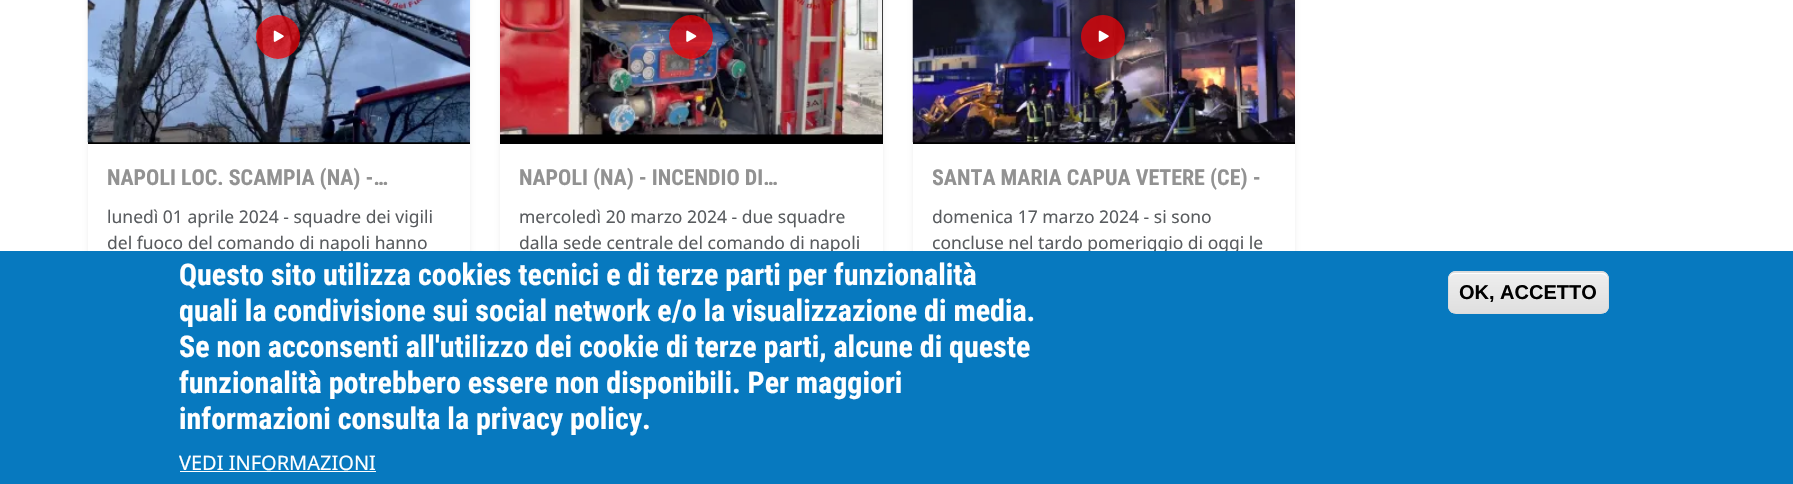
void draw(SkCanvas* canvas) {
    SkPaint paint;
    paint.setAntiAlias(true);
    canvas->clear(0xFFFFFFFF);
    paint.setColor(0x12000000);
    paint.setMaskFilter(SkMaskFilter::MakeBlur(kNormal_SkBlurStyle, 2.5f));
    canvas->drawRoundRect(SkRect::MakeXYWH(88, -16, 382, 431), 8, 8, paint);
    paint.setMaskFilter(nullptr);
    paint.setColor(0xFFFFFFFF);
    canvas->drawRect(SkRect::MakeXYWH(88, 144, 382, 107), paint);
    paint.setColor(0xFF000000);
    canvas->drawRect(SkRect::MakeXYWH(88, 142, 382, 2), paint);
    canvas->drawImageRect(SkImages::DeferredFromEncodedData(SkData::MakeFromFileName("img1.png")), SkRect::MakeXYWH(87, 0, 383, 143), SkSamplingOptions());
    canvas->save();
    canvas->clipPath(SkPathBuilder(SkPathFillType::kEvenOdd).moveTo(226, 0).lineTo(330, 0).lineTo(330, 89).lineTo(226, 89).close().moveTo(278, 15).cubicTo(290, 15, 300, 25, 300, 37).cubicTo(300, 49, 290, 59, 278, 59).cubicTo(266, 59, 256, 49, 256, 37).cubicTo(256, 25, 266, 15, 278, 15).close().detach(), true);
    paint.setColor(0x80000000);
    paint.setMaskFilter(SkMaskFilter::MakeBlur(kNormal_SkBlurStyle, 9.5f));
    canvas->drawRoundRect(SkRect::MakeXYWH(256, 15, 44, 44), 22, 22, paint);
    paint.setMaskFilter(nullptr);
    canvas->restore();
    paint.setColor(0xCCDB0307);
    canvas->drawCircle(278, 37, 22, paint);
    canvas->drawImageRect(SkImages::DeferredFromEncodedData(SkData::MakeFromFileName("img2.png")), SkRect::MakeXYWH(273, 30, 11, 12), SkSamplingOptions());
    SkFont font1(fontMgr->matchFamilyStyle("Roboto Condensed", SkFontStyle::Bold()), 22);
    font1.setSubpixel(true);
    paint.setColor(0xFF929292);
    canvas->drawString("NAPOLI LOC. SCAMPIA (NA) -…", 107, 185, font1, paint);
    SkFont font2(fontMgr->matchFamilyStyle("Noto Sans", SkFontStyle::Normal()), 17.5f);
    font2.setSubpixel(true);
    paint.setColor(0xFF595C5F);
    canvas->drawString("lunedì 01 aprile 2024 - squadre dei vigili", 107, 223, font2, paint);
    canvas->drawString("del fuoco del comando di napoli hanno", 107, 249, font2, paint);
    paint.setColor(0x12000000);
    paint.setMaskFilter(SkMaskFilter::MakeBlur(kNormal_SkBlurStyle, 2.5f));
    canvas->drawRoundRect(SkRect::MakeXYWH(500, -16, 383, 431), 8, 8, paint);
    paint.setMaskFilter(nullptr);
    paint.setColor(0xFFFFFFFF);
    canvas->drawRect(SkRect::MakeXYWH(500, 144, 383, 107), paint);
    paint.setColor(0xFF000000);
    canvas->drawRect(SkRect::MakeXYWH(500, 0, 383, 144), paint);
    canvas->drawImageRect(SkImages::DeferredFromEncodedData(SkData::MakeFromFileName("img3.png")), SkRect::MakeXYWH(500, 0, 383, 137), SkSamplingOptions());
    canvas->save();
    canvas->clipPath(SkPathBuilder(SkPathFillType::kEvenOdd).moveTo(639, 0).lineTo(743, 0).lineTo(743, 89).lineTo(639, 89).close().moveTo(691, 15).cubicTo(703, 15, 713, 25, 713, 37).cubicTo(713, 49, 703, 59, 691, 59).cubicTo(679, 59, 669, 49, 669, 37).cubicTo(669, 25, 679, 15, 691, 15).close().detach(), true);
    paint.setColor(0x80000000);
    paint.setMaskFilter(SkMaskFilter::MakeBlur(kNormal_SkBlurStyle, 9.5f));
    canvas->drawRoundRect(SkRect::MakeXYWH(669, 15, 44, 44), 22, 22, paint);
    paint.setMaskFilter(nullptr);
    canvas->restore();
    paint.setColor(0xCCDB0307);
    canvas->drawCircle(691, 37, 22, paint);
    canvas->drawImageRect(SkImages::DeferredFromEncodedData(SkData::MakeFromFileName("img4.png")), SkRect::MakeXYWH(686, 30, 11, 12), SkSamplingOptions());
    paint.setColor(0xFF929292);
    canvas->drawString("NAPOLI (NA) - INCENDIO DI…", 519, 185, font1, paint);
    paint.setColor(0xFF595C5F);
    canvas->drawString("mercoledì 20 marzo 2024 - due squadre", 519, 223, font2, paint);
    canvas->drawString("dalla sede centrale del comando di napoli", 519, 249, font2, paint);
    paint.setColor(0x12000000);
    paint.setMaskFilter(SkMaskFilter::MakeBlur(kNormal_SkBlurStyle, 2.5f));
    canvas->drawRoundRect(SkRect::MakeXYWH(913, -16, 382, 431), 8, 8, paint);
    paint.setMaskFilter(nullptr);
    paint.setColor(0xFFFFFFFF);
    canvas->drawRect(SkRect::MakeXYWH(913, 144, 382, 107), paint);
    paint.setColor(0xFF000000);
    canvas->drawRect(SkRect::MakeXYWH(913, 142, 382, 2), paint);
    canvas->drawImageRect(SkImages::DeferredFromEncodedData(SkData::MakeFromFileName("img5.png")), SkRect::MakeXYWH(912, 0, 383, 143), SkSamplingOptions());
    canvas->save();
    canvas->clipPath(SkPathBuilder(SkPathFillType::kEvenOdd).moveTo(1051, 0).lineTo(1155, 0).lineTo(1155, 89).lineTo(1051, 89).close().moveTo(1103, 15).cubicTo(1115, 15, 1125, 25, 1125, 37).cubicTo(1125, 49, 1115, 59, 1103, 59).cubicTo(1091, 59, 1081, 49, 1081, 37).cubicTo(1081, 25, 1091, 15, 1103, 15).close().detach(), true);
    paint.setColor(0x80000000);
    paint.setMaskFilter(SkMaskFilter::MakeBlur(kNormal_SkBlurStyle, 9.5f));
    canvas->drawRoundRect(SkRect::MakeXYWH(1081, 15, 44, 44), 22, 22, paint);
    paint.setMaskFilter(nullptr);
    canvas->restore();
    paint.setColor(0xCCDB0307);
    canvas->drawCircle(1103, 37, 22, paint);
    canvas->drawImageRect(SkImages::DeferredFromEncodedData(SkData::MakeFromFileName("img6.png")), SkRect::MakeXYWH(1098, 30, 11, 12), SkSamplingOptions());
    canvas->save();
    canvas->clipRect(SkRect::MakeXYWH(933, 164, 342, 29));
    paint.setColor(0xFF929292);
    canvas->drawString("SANTA MARIA CAPUA VETERE", 932, 185, font1, paint);
    canvas->restore();
    canvas->drawString("(CE) -", 1210, 185, font1, paint);
    paint.setColor(0xFF595C5F);
    canvas->drawString("domenica 17 marzo 2024 - si sono", 932, 223, font2, paint);
    canvas->drawString("concluse nel tardo pomeriggio di oggi le", 932, 249, font2, paint);
    paint.setColor(0xFF0779BF);
    canvas->drawRect(SkRect::MakeXYWH(0, 251, 1793, 233), paint);
    SkFont font3(fontMgr->matchFamilyStyle("Roboto Condensed", SkFontStyle::Bold()), 30);
    font3.setSubpixel(true);
    paint.setColor(0xFFFFFFFF);
    canvas->drawString("Questo sito utilizza cookies tecnici e di terze parti per funzionalità", 179, 285, font3, paint);
    canvas->drawString("quali la condivisione sui social network e/o la visualizzazione di media.", 179, 321, font3, paint);
    canvas->drawString("Se non acconsenti all'utilizzo dei cookie di terze parti, alcune di queste", 179, 357, font3, paint);
    canvas->drawString("funzionalità potrebbero essere non disponibili. Per maggiori", 179, 393, font3, paint);
    canvas->drawString("informazioni consulta la privacy policy.", 179, 429, font3, paint);
    SkFont font4(fontMgr->matchFamilyStyle("Noto Sans", SkFontStyle::Normal()), 20);
    font4.setSubpixel(true);
    canvas->drawString("VEDI INFORMAZIONI", 179, 470, font4, paint);
    canvas->drawRect(SkRect::MakeXYWH(180, 471, 196, 1), paint);
    canvas->save();
    canvas->clipPath(SkPathBuilder().moveTo(1456, 271).lineTo(1601, 271).cubicTo(1605.5f, 271, 1609, 274.5f, 1609, 279).lineTo(1609, 306).cubicTo(1609, 310.5f, 1605.5f, 314, 1601, 314).lineTo(1456, 314).cubicTo(1451.5f, 314, 1448, 310.5f, 1448, 306).lineTo(1448, 279).cubicTo(1448, 274.5f, 1451.5f, 271, 1456, 271).close().detach(), true);
    {
        const SkColor colors[] = {0xFFEDEDED, 0xFFDFDFDF};
        const float stops[] = {0.05f, 1};
        const SkPoint ends[] = {{1528, 233}, {1528, 273}};
        paint.setShader(SkGradientShader::MakeLinear(ends, colors, stops, 2, SkTileMode::kClamp));
        paint.setAlpha(255);
    }
    canvas->drawRect(SkRect::MakeXYWH(1448, 271, 161, 2), paint);
    {
        const SkColor colors[] = {0xFFEDEDED, 0xFFDFDFDF};
        const float stops[] = {0.05f, 1};
        const SkPoint ends[] = {{1528, 273}, {1528, 313}};
        paint.setShader(SkGradientShader::MakeLinear(ends, colors, stops, 2, SkTileMode::kClamp));
        paint.setAlpha(255);
    }
    canvas->drawRect(SkRect::MakeXYWH(1448, 273, 161, 40), paint);
    canvas->restore();
    paint.setShader(nullptr);
    paint.setColor(0xFFFFFFFF);
    canvas->drawPath(SkPathBuilder().moveTo(1455, 274).lineTo(1601, 274).cubicTo(1605, 274, 1608, 277, 1608, 280).lineTo(1608, 279).cubicTo(1608, 276, 1605, 273, 1602, 273).lineTo(1455, 273).cubicTo(1452, 273, 1449, 276, 1449, 279).lineTo(1449, 280).cubicTo(1449, 277, 1452, 274, 1455, 274).close().detach(), paint);
    paint.setStyle(SkPaint::kStroke_Style);
    paint.setStrokeWidth(1);
    paint.setColor(0xFFDCDCDC);
    canvas->drawRoundRect(SkRect::MakeXYWH(1448.5f, 271.5f, 160, 42), 7.5f, 7.5f, paint);
    SkFont font5(fontMgr->matchFamilyStyle("Liberation Sans", SkFontStyle::Bold()), 20);
    font5.setSubpixel(true);
    paint.setStyle(SkPaint::kFill_Style);
    paint.setColor(0xFF000000);
    canvas->drawString("OK, ACCETTO", 1459, 299, font5, paint);
}
